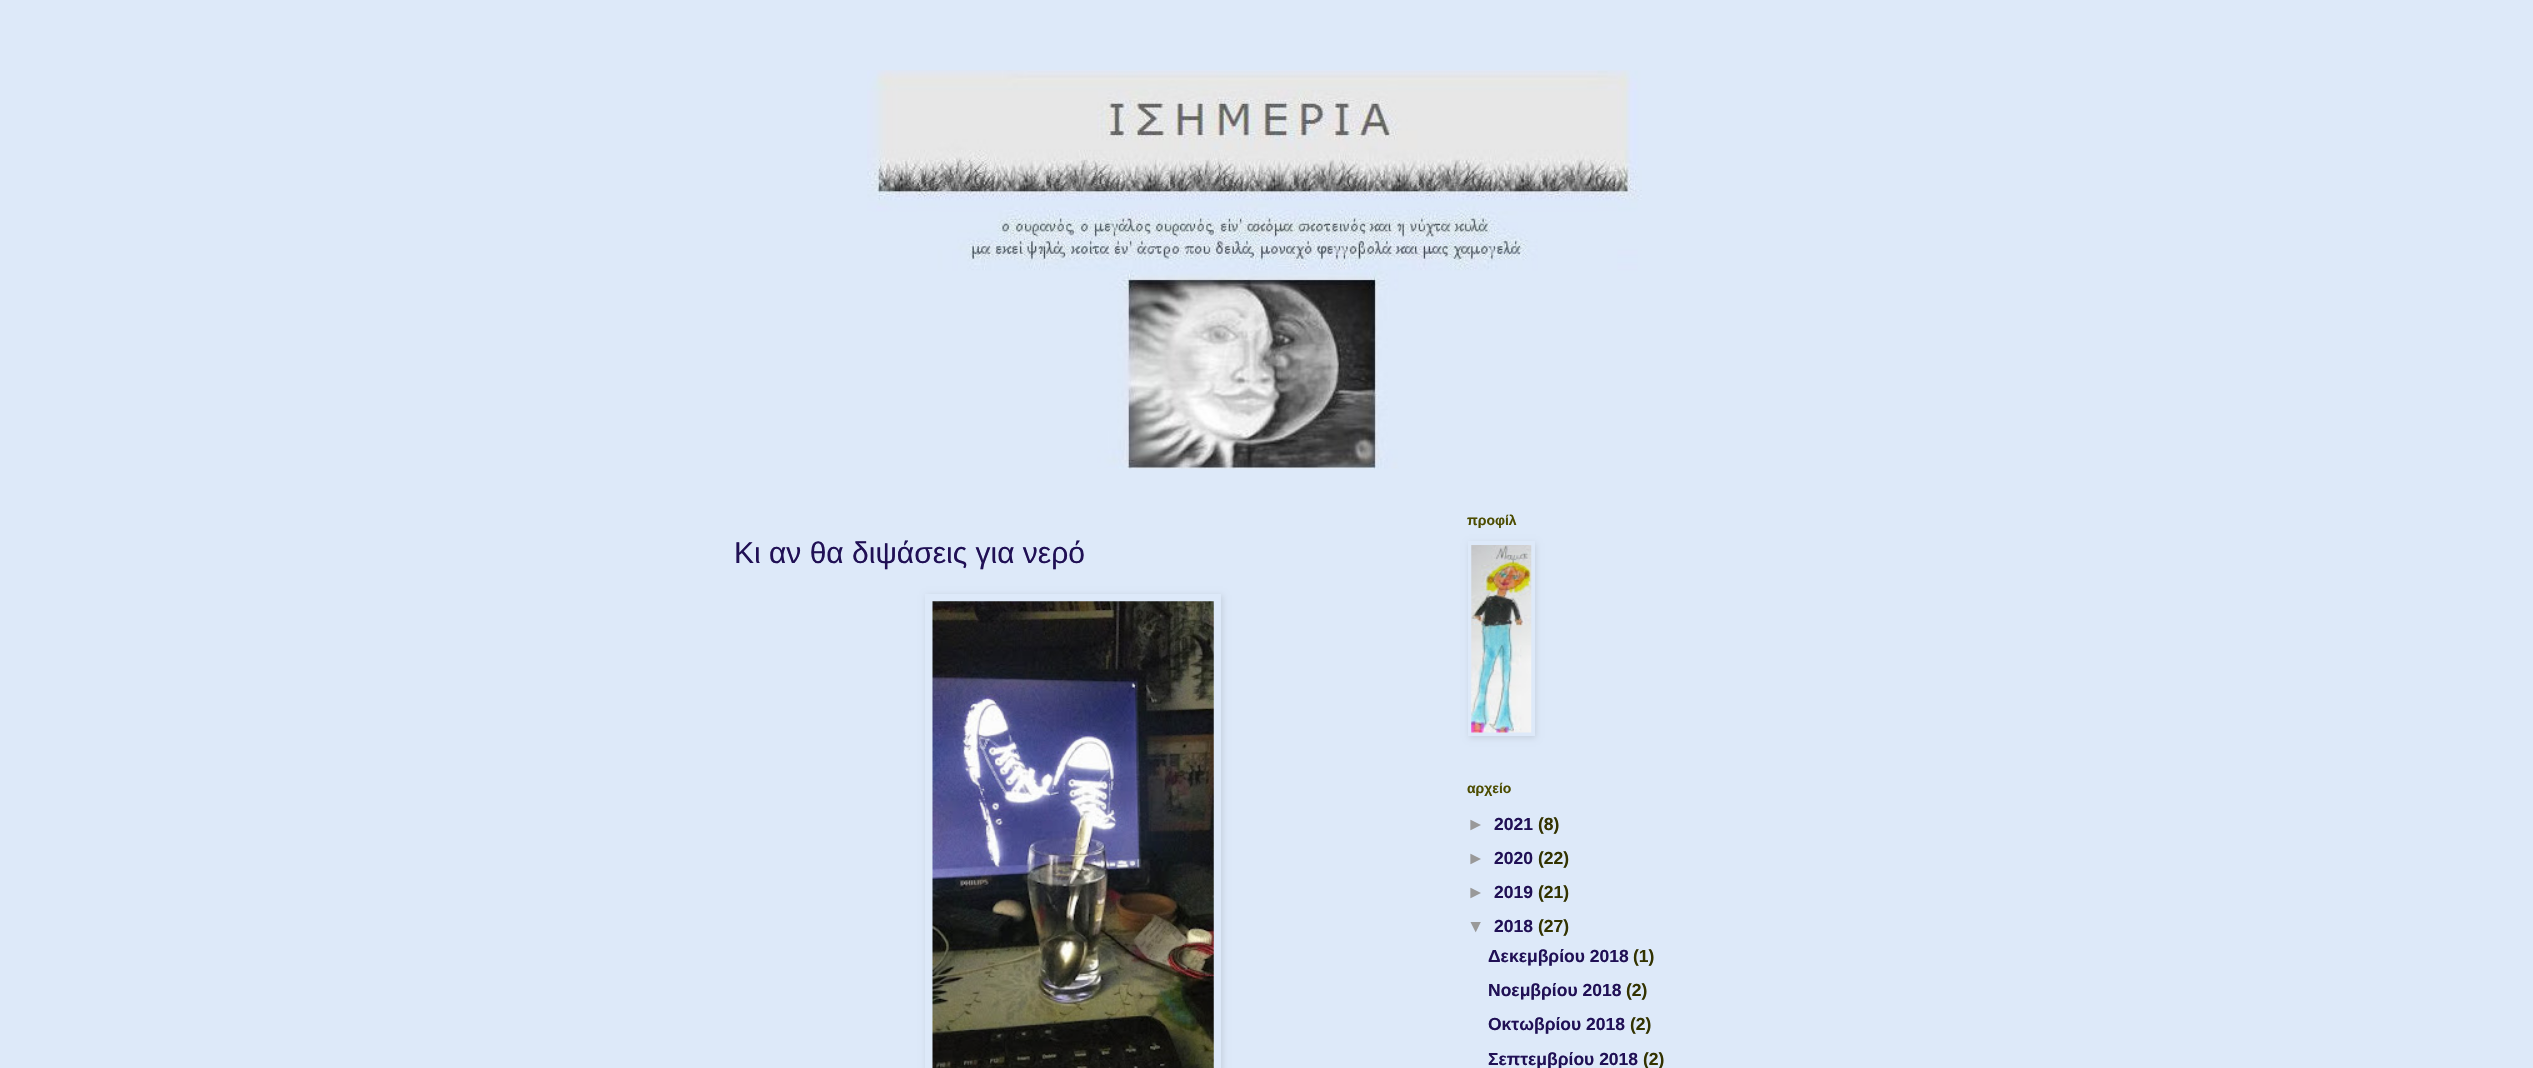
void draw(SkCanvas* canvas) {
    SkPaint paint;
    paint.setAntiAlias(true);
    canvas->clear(0xFFDDE9F9);
    canvas->drawImageRect(SkImages::DeferredFromEncodedData(SkData::MakeFromFileName("img1.png")), SkRect::MakeXYWH(867, 70, 775, 399), SkSamplingOptions());
    SkFont font1(fontMgr->matchFamilyStyle("Liberation Sans", SkFontStyle::Normal()), 30);
    font1.setSubpixel(true);
    paint.setColor(0xFF201055);
    canvas->drawString("Κι αν θα διψάσεις για νερό", 734, 563, font1, paint);
    canvas->save();
    canvas->clipPath(SkPathBuilder(SkPathFillType::kEvenOdd).moveTo(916, 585).lineTo(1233, 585).lineTo(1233, 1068).lineTo(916, 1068).close().moveTo(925, 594).lineTo(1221, 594).lineTo(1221, 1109).lineTo(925, 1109).close().detach(), true);
    paint.setColor(0x1A000000);
    paint.setMaskFilter(SkMaskFilter::MakeBlur(kNormal_SkBlurStyle, 3));
    canvas->drawRect(SkRect::MakeXYWH(926, 595, 297, 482), paint);
    paint.setMaskFilter(nullptr);
    canvas->restore();
    canvas->drawImageRect(SkImages::DeferredFromEncodedData(SkData::MakeFromFileName("img2.png")), SkRect::MakeXYWH(932, 601, 282, 467), SkSamplingOptions());
    SkFont font2(fontMgr->matchFamilyStyle("Liberation Sans", SkFontStyle::Bold()), 14);
    font2.setSubpixel(true);
    paint.setColor(0xFF4C4C00);
    canvas->drawString("προφίλ", 1467, 525, font2, paint);
    paint.setColor(0x1A000000);
    paint.setMaskFilter(SkMaskFilter::MakeBlur(kNormal_SkBlurStyle, 3));
    canvas->drawRect(SkRect::MakeXYWH(1469, 543, 67, 195), paint);
    paint.setMaskFilter(nullptr);
    paint.setColor(0xFFDDE9F9);
    canvas->drawRect(SkRect::MakeXYWH(1468, 541, 67, 195), paint);
    canvas->drawImageRect(SkImages::DeferredFromEncodedData(SkData::MakeFromFileName("img3.png")), SkRect::MakeXYWH(1471, 545, 61, 188), SkSamplingOptions());
    paint.setColor(0xFF4C4C00);
    canvas->drawString("αρχείο", 1467, 793, font2, paint);
    SkFont font3(fontMgr->matchFamilyStyle("Liberation Sans", SkFontStyle::Bold()), 17.5f);
    font3.setSubpixel(true);
    paint.setColor(0xFF999999);
    canvas->drawString("►", 1467, 830, font3, paint);
    paint.setColor(0xFF201055);
    canvas->drawString("2021", 1494, 830, font3, paint);
    paint.setColor(0xFF333300);
    canvas->drawString("(8)", 1538, 830, font3, paint);
    paint.setColor(0xFF999999);
    canvas->drawString("►", 1467, 864, font3, paint);
    paint.setColor(0xFF201055);
    canvas->drawString("2020", 1494, 864, font3, paint);
    paint.setColor(0xFF333300);
    canvas->drawString("(22)", 1538, 864, font3, paint);
    paint.setColor(0xFF999999);
    canvas->drawString("►", 1467, 898, font3, paint);
    paint.setColor(0xFF201055);
    canvas->drawString("2019", 1494, 898, font3, paint);
    paint.setColor(0xFF333300);
    canvas->drawString("(21)", 1538, 898, font3, paint);
    paint.setColor(0xFF999999);
    canvas->drawString("▼", 1467, 932, font3, paint);
    paint.setColor(0xFF201055);
    canvas->drawString("2018", 1494, 932, font3, paint);
    paint.setColor(0xFF333300);
    canvas->drawString("(27)", 1538, 932, font3, paint);
    paint.setColor(0xFF201055);
    canvas->drawString("Δεκεμβρίου 2018", 1488, 962, font3, paint);
    paint.setColor(0xFF333300);
    canvas->drawString("(1)", 1633, 962, font3, paint);
    paint.setColor(0xFF201055);
    canvas->drawString("Νοεμβρίου 2018", 1488, 996, font3, paint);
    paint.setColor(0xFF333300);
    canvas->drawString("(2)", 1626, 996, font3, paint);
    paint.setColor(0xFF201055);
    canvas->drawString("Οκτωβρίου 2018", 1488, 1030, font3, paint);
    paint.setColor(0xFF333300);
    canvas->drawString("(2)", 1630, 1030, font3, paint);
    paint.setColor(0xFF201055);
    canvas->drawString("Σεπτεμβρίου 2018", 1488, 1065, font3, paint);
    paint.setColor(0xFF333300);
    canvas->drawString("(2)", 1643, 1065, font3, paint);
}
